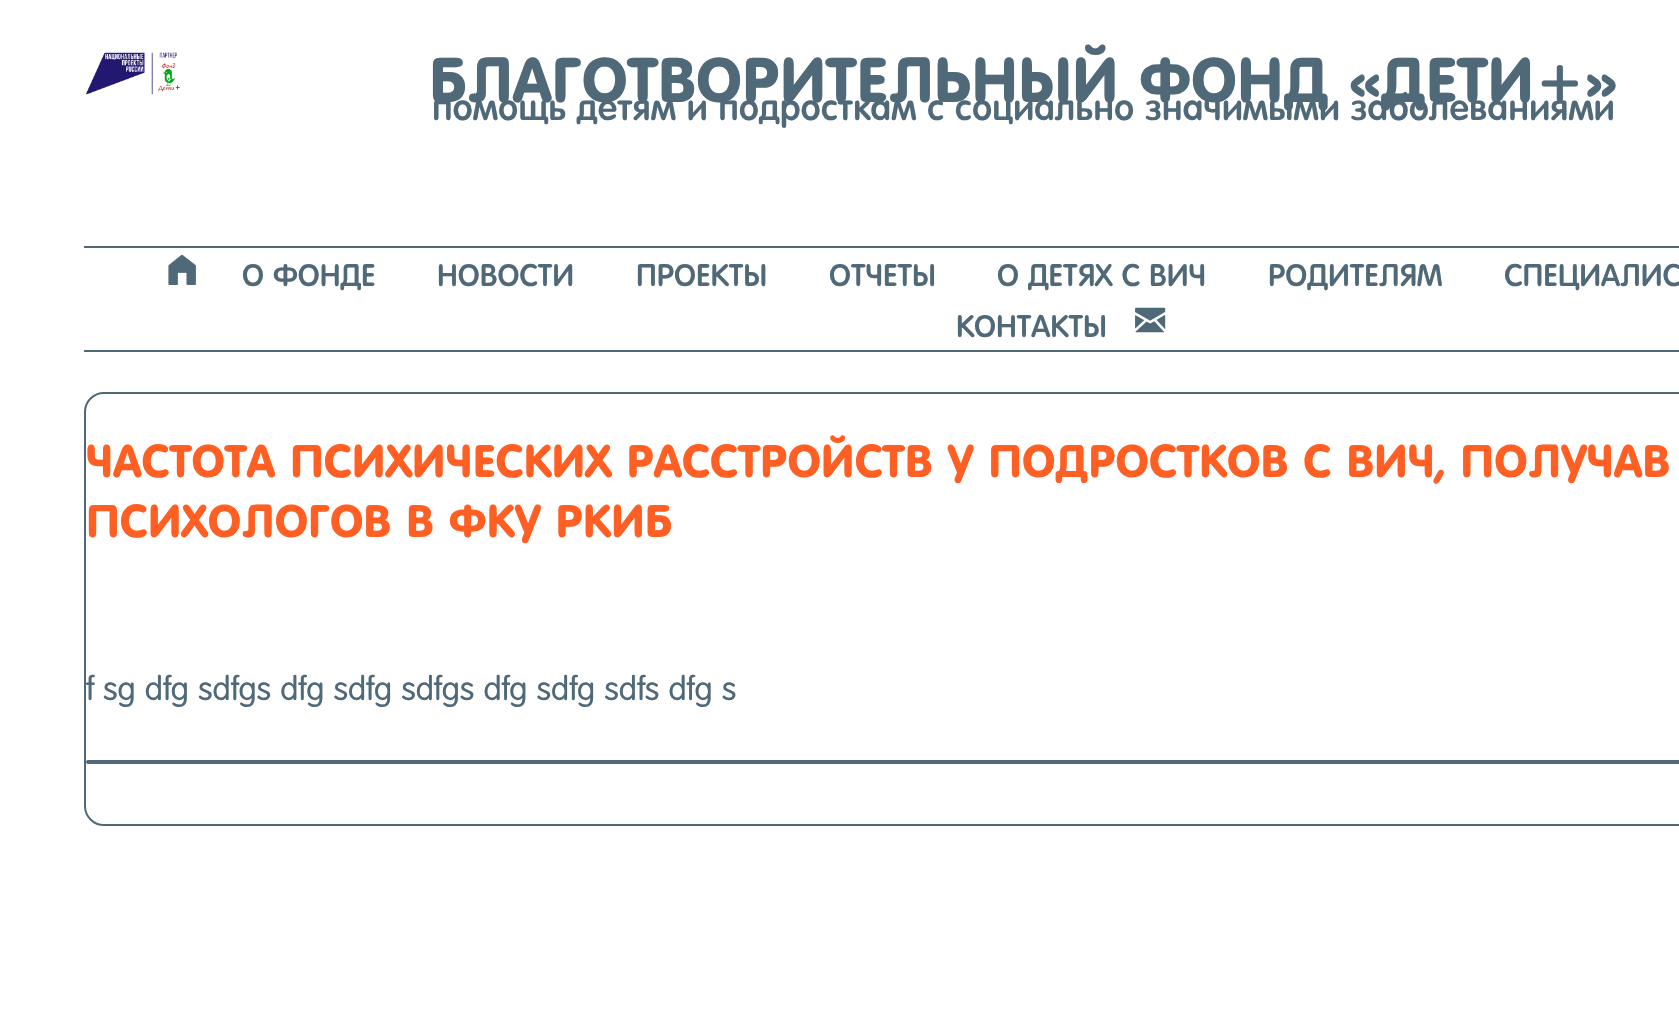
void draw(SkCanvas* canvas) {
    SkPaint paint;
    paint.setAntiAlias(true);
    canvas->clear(0xFFFFFFFF);
    canvas->drawImageRect(SkImages::DeferredFromEncodedData(SkData::MakeFromFileName("img1.png")), SkRect::MakeXYWH(86, 52, 94, 43), SkSamplingOptions());
    SkFont font1(fontMgr->matchFamilyStyle("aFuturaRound", SkFontStyle::Bold()), 60.5f);
    font1.setSubpixel(true);
    paint.setColor(0xFF506978);
    canvas->drawString("БЛАГОТВОРИТЕЛЬНЫЙ ФОНД «ДЕТИ+»", 429, 102, font1, paint);
    SkFont font2(fontMgr->matchFamilyStyle("aFuturaRound", SkFontStyle::Normal()), 35.3f);
    font2.setSubpixel(true);
    canvas->drawString("помощь детям и подросткам с социально значимыми заболеваниями", 432, 120, font2, paint);
    canvas->drawRect(SkRect::MakeXYWH(84, 246, 1595, 2), paint);
    canvas->drawRect(SkRect::MakeXYWH(84, 350, 1595, 2), paint);
    canvas->drawImageRect(SkImages::DeferredFromEncodedData(SkData::MakeFromFileName("img2.png")), SkRect::MakeXYWH(168, 254, 28, 31), SkSamplingOptions());
    SkFont font3(fontMgr->matchFamilyStyle("aFuturaRound", SkFontStyle::Normal()), 30);
    font3.setSubpixel(true);
    canvas->drawString("О ФОНДЕ", 242, 286, font3, paint);
    canvas->drawString("НОВОСТИ", 437, 286, font3, paint);
    canvas->drawString("ПРОЕКТЫ", 636, 286, font3, paint);
    canvas->drawString("ОТЧЕТЫ", 829, 286, font3, paint);
    canvas->drawString("О ДЕТЯХ С ВИЧ", 997, 286, font3, paint);
    canvas->drawString("РОДИТЕЛЯМ", 1268, 286, font3, paint);
    canvas->drawString("СПЕЦИАЛИС", 1504, 286, font3, paint);
    canvas->drawString("КОНТАКТЫ", 956, 337, font3, paint);
    canvas->drawImageRect(SkImages::DeferredFromEncodedData(SkData::MakeFromFileName("img3.png")), SkRect::MakeXYWH(1135, 307, 31, 26), SkSamplingOptions());
    paint.setStyle(SkPaint::kStroke_Style);
    paint.setStrokeWidth(2);
    canvas->drawRoundRect(SkRect::MakeXYWH(85, 393, 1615, 432), 19, 19, paint);
    SkFont font4(fontMgr->matchFamilyStyle("aFuturaRound", SkFontStyle::Bold()), 44);
    font4.setSubpixel(true);
    paint.setStyle(SkPaint::kFill_Style);
    paint.setColor(0xFFFF5F23);
    canvas->drawString("ЧАСТОТА ПСИХИЧЕСКИХ РАССТРОЙСТВ У ПОДРОСТКОВ С ВИЧ, ПОЛУЧАВ", 86, 477, font4, paint);
    canvas->drawString("ПСИХОЛОГОВ В ФКУ РКИБ", 86, 537, font4, paint);
    SkFont font5(fontMgr->matchFamilyStyle("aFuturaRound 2", SkFontStyle::Normal()), 32);
    font5.setSubpixel(true);
    paint.setColor(0xFF506978);
    canvas->drawString("f sg dfg sdfgs dfg sdfg sdfgs dfg sdfg sdfs dfg s", 86, 700, font5, paint);
    canvas->drawRoundRect(SkRect::MakeXYWH(86, 760, 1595, 4), 2, 2, paint);
}
